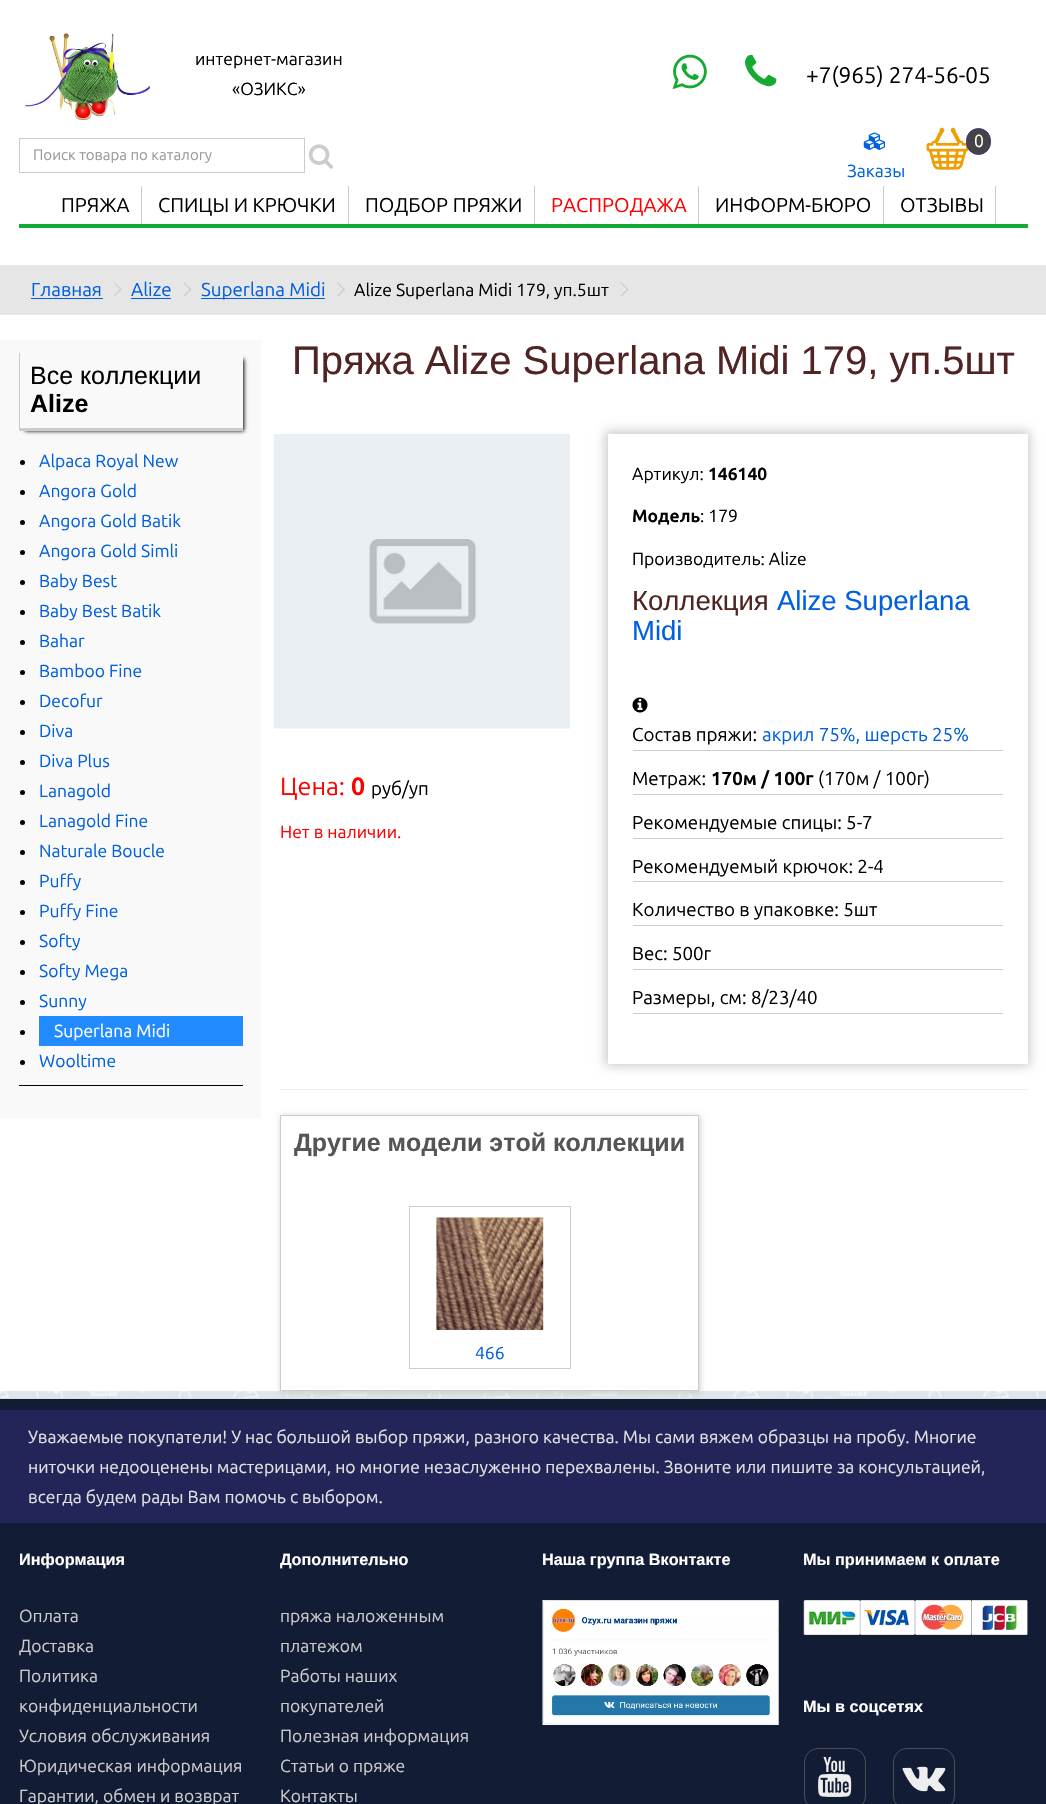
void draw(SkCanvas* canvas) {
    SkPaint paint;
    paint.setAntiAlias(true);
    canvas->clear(0xFFFFFFFF);
    canvas->drawImageRect(SkImages::DeferredFromEncodedData(SkData::MakeFromFileName("img1.png")), SkRect::MakeXYWH(0, 1391, 1046, 7), SkSamplingOptions());
    paint.setColor(0xFF15AA32);
    canvas->drawRect(SkRect::MakeXYWH(19, 224, 1009, 4), paint);
    canvas->drawImageRect(SkImages::DeferredFromEncodedData(SkData::MakeFromFileName("img2.png")), SkRect::MakeXYWH(23, 33, 128, 88), SkSamplingOptions());
    SkFont font1(fontMgr->matchFamilyStyle("Ubuntu", SkFontStyle::Normal()), 17.5f);
    font1.setSubpixel(true);
    paint.setColor(0xFF000000);
    canvas->drawString("интернет-магазин", 195, 65, font1, paint);
    canvas->drawString("«ОЗИКС»", 232, 95, font1, paint);
    canvas->drawImageRect(SkImages::DeferredFromEncodedData(SkData::MakeFromFileName("img3.png")), SkRect::MakeXYWH(672, 54, 35, 36), SkSamplingOptions());
    canvas->drawImageRect(SkImages::DeferredFromEncodedData(SkData::MakeFromFileName("img4.png")), SkRect::MakeXYWH(745, 54, 32, 33), SkSamplingOptions());
    SkFont font2(fontMgr->matchFamilyStyle("Ubuntu", SkFontStyle::Normal()), 22.5f);
    font2.setSubpixel(true);
    canvas->drawString("+7(965) 274-56-05", 806, 83, font2, paint);
    paint.setStyle(SkPaint::kStroke_Style);
    paint.setStrokeWidth(1);
    paint.setColor(0xFFCCCCCC);
    canvas->drawRect(SkRect::MakeXYWH(19.5f, 138.5f, 285, 34), paint);
    SkFont font3(fontMgr->matchFamilyStyle("Ubuntu", SkFontStyle::Normal()), 15);
    font3.setSubpixel(true);
    paint.setStyle(SkPaint::kFill_Style);
    paint.setColor(0xFF999999);
    canvas->drawString("Поиск товара по каталогу", 33, 160, font3, paint);
    canvas->drawImageRect(SkImages::DeferredFromEncodedData(SkData::MakeFromFileName("img5.png")), SkRect::MakeXYWH(308, 144, 25, 25), SkSamplingOptions());
    canvas->drawImageRect(SkImages::DeferredFromEncodedData(SkData::MakeFromFileName("img6.png")), SkRect::MakeXYWH(926, 127, 43, 43), SkSamplingOptions());
    paint.setColor(0xFF444444);
    canvas->drawRoundRect(SkRect::MakeXYWH(966.5f, 128.5f, 24, 26), 12, 12, paint);
    paint.setStyle(SkPaint::kStroke_Style);
    paint.setColor(0xFF3B3386);
    canvas->drawRoundRect(SkRect::MakeXYWH(966.5f, 128.5f, 24, 26), 12, 12, paint);
    paint.setStyle(SkPaint::kFill_Style);
    paint.setColor(0xFFFFFFFF);
    canvas->drawString("0", 974, 147, font1, paint);
    canvas->drawImageRect(SkImages::DeferredFromEncodedData(SkData::MakeFromFileName("img7.png")), SkRect::MakeXYWH(863, 132, 22, 18), SkSamplingOptions());
    paint.setColor(0xFF0060DF);
    canvas->drawString("Заказы", 847, 177, font1, paint);
    paint.setColor(0xFFCCCCCC);
    canvas->drawRect(SkRect::MakeXYWH(141, 186, 1, 38), paint);
    SkFont font4(fontMgr->matchFamilyStyle("Ubuntu", SkFontStyle::Normal()), 20);
    font4.setSubpixel(true);
    paint.setColor(0xFF000000);
    canvas->drawString("ПРЯЖА", 61, 212, font4, paint);
    paint.setColor(0xFFCCCCCC);
    canvas->drawRect(SkRect::MakeXYWH(348, 186, 1, 38), paint);
    paint.setColor(0xFF000000);
    canvas->drawString("СПИЦЫ И КРЮЧКИ", 158, 212, font4, paint);
    paint.setColor(0xFFCCCCCC);
    canvas->drawRect(SkRect::MakeXYWH(534, 186, 1, 38), paint);
    paint.setColor(0xFF000000);
    canvas->drawString("ПОДБОР ПРЯЖИ", 365, 212, font4, paint);
    paint.setColor(0xFFCCCCCC);
    canvas->drawRect(SkRect::MakeXYWH(698, 186, 1, 38), paint);
    paint.setColor(0xFFFF0000);
    canvas->drawString("РАСПРОДАЖА", 551, 212, font4, paint);
    paint.setColor(0xFFCCCCCC);
    canvas->drawRect(SkRect::MakeXYWH(883, 186, 1, 38), paint);
    paint.setColor(0xFF000000);
    canvas->drawString("ИНФОРМ-БЮРО", 715, 212, font4, paint);
    paint.setColor(0xFFCCCCCC);
    canvas->drawRect(SkRect::MakeXYWH(995, 186, 1, 38), paint);
    paint.setColor(0xFF000000);
    canvas->drawString("ОТЗЫВЫ", 900, 212, font4, paint);
    paint.setColor(0xFFE6E6E6);
    canvas->drawRect(SkRect::MakeXYWH(0, 265, 1046, 50), paint);
    SkFont font5(fontMgr->matchFamilyStyle("Ubuntu", SkFontStyle::Normal()), 18.75f);
    font5.setSubpixel(true);
    paint.setColor(0xFF0060DF);
    canvas->drawString("Главная", 31, 296, font5, paint);
    canvas->drawRect(SkRect::MakeXYWH(31, 298, 72, 1), paint);
    paint.setColor(0xFFCCCCCC);
    canvas->drawPath(SkPathBuilder().moveTo(114, 283).lineTo(114.5f, 282.5f).lineTo(121.5f, 289.5f).lineTo(121, 290.5f).close().detach(), paint);
    canvas->drawPath(SkPathBuilder().moveTo(114, 295.5f).lineTo(121, 288.5f).lineTo(121.5f, 289.5f).lineTo(114.5f, 296.5f).close().detach(), paint);
    paint.setColor(0xFF0060DF);
    canvas->drawString("Alize", 131, 296, font5, paint);
    canvas->drawRect(SkRect::MakeXYWH(131, 298, 40, 1), paint);
    paint.setColor(0xFFCCCCCC);
    canvas->drawPath(SkPathBuilder().moveTo(183.5f, 283).lineTo(184.5f, 282.5f).lineTo(191.5f, 289.5f).lineTo(190.5f, 290.5f).close().detach(), paint);
    canvas->drawPath(SkPathBuilder().moveTo(183.5f, 295.5f).lineTo(190.5f, 288.5f).lineTo(191.5f, 289.5f).lineTo(184.5f, 296.5f).close().detach(), paint);
    paint.setColor(0xFF0060DF);
    canvas->drawRect(SkRect::MakeXYWH(201, 298, 124, 1), paint);
    canvas->drawString("Superlana Midi", 201, 296, font5, paint);
    paint.setColor(0xFFCCCCCC);
    canvas->drawPath(SkPathBuilder().moveTo(337, 283).lineTo(338, 282.5f).lineTo(345, 289.5f).lineTo(344, 290.5f).close().detach(), paint);
    canvas->drawPath(SkPathBuilder().moveTo(337, 295.5f).lineTo(344, 288.5f).lineTo(345, 289.5f).lineTo(338, 296.5f).close().detach(), paint);
    paint.setColor(0xFF000000);
    canvas->drawString("Alize Superlana Midi 179, уп.5шт", 354, 296, font1, paint);
    paint.setColor(0xFFCCCCCC);
    canvas->drawPath(SkPathBuilder().moveTo(620.5f, 283).lineTo(621.5f, 282.5f).lineTo(628.5f, 289.5f).lineTo(628, 290.5f).close().detach(), paint);
    canvas->drawPath(SkPathBuilder().moveTo(620.5f, 295.5f).lineTo(628, 288.5f).lineTo(628.5f, 289.5f).lineTo(621.5f, 296.5f).close().detach(), paint);
    paint.setColor(0xFFF9F9F9);
    canvas->drawRect(SkRect::MakeXYWH(0, 340, 261, 778), paint);
    canvas->save();
    canvas->clipPath(SkPathBuilder(SkPathFillType::kEvenOdd).moveTo(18, 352).lineTo(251, 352).lineTo(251, 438).lineTo(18, 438).close().moveTo(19, 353).lineTo(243, 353).lineTo(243, 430).lineTo(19, 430).close().detach(), true);
    paint.setColor(0xFF000000);
    paint.setMaskFilter(SkMaskFilter::MakeBlur(kNormal_SkBlurStyle, 2));
    canvas->drawRect(SkRect::MakeXYWH(25, 359, 219, 72), paint);
    paint.setMaskFilter(nullptr);
    canvas->restore();
    paint.setColor(0xFFCCCCCC);
    canvas->drawRect(SkRect::MakeXYWH(19, 428, 224, 3), paint);
    canvas->drawRect(SkRect::MakeXYWH(19, 353, 1, 77), paint);
    SkFont font6(fontMgr->matchFamilyStyle("Liberation Sans", SkFontStyle::Normal()), 25);
    font6.setSubpixel(true);
    paint.setColor(0xFF000000);
    canvas->drawString("Все коллекции", 30, 384, font6, paint);
    SkFont font7(fontMgr->matchFamilyStyle("Liberation Sans", SkFontStyle::Bold()), 25);
    font7.setSubpixel(true);
    canvas->drawString("Alize", 30, 412, font7, paint);
    canvas->drawRect(SkRect::MakeXYWH(19, 1085, 224, 1), paint);
    canvas->drawCircle(22.5f, 462.5f, 2.5f, paint);
    paint.setColor(0xFF0060DF);
    canvas->drawString("Alpaca Royal New", 39, 467, font1, paint);
    paint.setColor(0xFF000000);
    canvas->drawCircle(22.5f, 492.5f, 2.5f, paint);
    paint.setColor(0xFF0060DF);
    canvas->drawString("Angora Gold", 39, 497, font1, paint);
    paint.setColor(0xFF000000);
    canvas->drawCircle(22.5f, 522.5f, 2.5f, paint);
    paint.setColor(0xFF0060DF);
    canvas->drawString("Angora Gold Batik", 39, 527, font1, paint);
    paint.setColor(0xFF000000);
    canvas->drawCircle(22.5f, 552.5f, 2.5f, paint);
    paint.setColor(0xFF0060DF);
    canvas->drawString("Angora Gold Simli", 39, 557, font1, paint);
    paint.setColor(0xFF000000);
    canvas->drawCircle(22.5f, 582.5f, 2.5f, paint);
    paint.setColor(0xFF0060DF);
    canvas->drawString("Baby Best", 39, 587, font1, paint);
    paint.setColor(0xFF000000);
    canvas->drawCircle(22.5f, 612.5f, 2.5f, paint);
    paint.setColor(0xFF0060DF);
    canvas->drawString("Baby Best Batik", 39, 617, font1, paint);
    paint.setColor(0xFF000000);
    canvas->drawCircle(22.5f, 642.5f, 2.5f, paint);
    paint.setColor(0xFF0060DF);
    canvas->drawString("Bahar", 39, 647, font1, paint);
    paint.setColor(0xFF000000);
    canvas->drawCircle(22.5f, 672.5f, 2.5f, paint);
    paint.setColor(0xFF0060DF);
    canvas->drawString("Bamboo Fine", 39, 677, font1, paint);
    paint.setColor(0xFF000000);
    canvas->drawCircle(22.5f, 702.5f, 2.5f, paint);
    paint.setColor(0xFF0060DF);
    canvas->drawString("Decofur", 39, 707, font1, paint);
    paint.setColor(0xFF000000);
    canvas->drawCircle(22.5f, 732.5f, 2.5f, paint);
    paint.setColor(0xFF0060DF);
    canvas->drawString("Diva", 39, 737, font1, paint);
    paint.setColor(0xFF000000);
    canvas->drawCircle(22.5f, 762.5f, 2.5f, paint);
    paint.setColor(0xFF0060DF);
    canvas->drawString("Diva Plus", 39, 767, font1, paint);
    paint.setColor(0xFF000000);
    canvas->drawCircle(22.5f, 792.5f, 2.5f, paint);
    paint.setColor(0xFF0060DF);
    canvas->drawString("Lanagold", 39, 797, font1, paint);
    paint.setColor(0xFF000000);
    canvas->drawCircle(22.5f, 822.5f, 2.5f, paint);
    paint.setColor(0xFF0060DF);
    canvas->drawString("Lanagold Fine", 39, 827, font1, paint);
    paint.setColor(0xFF000000);
    canvas->drawCircle(22.5f, 852.5f, 2.5f, paint);
    paint.setColor(0xFF0060DF);
    canvas->drawString("Naturale Boucle", 39, 857, font1, paint);
    paint.setColor(0xFF000000);
    canvas->drawCircle(22.5f, 882.5f, 2.5f, paint);
    paint.setColor(0xFF0060DF);
    canvas->drawString("Puffy", 39, 887, font1, paint);
    paint.setColor(0xFF000000);
    canvas->drawCircle(22.5f, 912.5f, 2.5f, paint);
    paint.setColor(0xFF0060DF);
    canvas->drawString("Puffy Fine", 39, 917, font1, paint);
    paint.setColor(0xFF000000);
    canvas->drawCircle(22.5f, 942.5f, 2.5f, paint);
    paint.setColor(0xFF0060DF);
    canvas->drawString("Softy", 39, 947, font1, paint);
    paint.setColor(0xFF000000);
    canvas->drawCircle(22.5f, 972.5f, 2.5f, paint);
    paint.setColor(0xFF0060DF);
    canvas->drawString("Softy Mega", 39, 977, font1, paint);
    paint.setColor(0xFF000000);
    canvas->drawCircle(22.5f, 1002.5f, 2.5f, paint);
    paint.setColor(0xFF0060DF);
    canvas->drawString("Sunny", 39, 1007, font1, paint);
    paint.setColor(0xFF000000);
    canvas->drawCircle(22.5f, 1032.5f, 2.5f, paint);
    paint.setColor(0xFF228BFF);
    canvas->drawRect(SkRect::MakeXYWH(39, 1016, 204, 30), paint);
    paint.setColor(0xFFFFFFFF);
    canvas->drawString("Superlana Midi", 54, 1037, font1, paint);
    paint.setColor(0xFF000000);
    canvas->drawCircle(22.5f, 1062.5f, 2.5f, paint);
    paint.setColor(0xFF0060DF);
    canvas->drawString("Wooltime", 39, 1067, font1, paint);
    SkFont font8(fontMgr->matchFamilyStyle("Liberation Sans", SkFontStyle::Normal()), 40);
    font8.setSubpixel(true);
    paint.setColor(0xFF512424);
    canvas->drawString("Пряжа Alize Superlana Midi 179, уп.5шт", 292, 374, font8, paint);
    canvas->drawImageRect(SkImages::DeferredFromEncodedData(SkData::MakeFromFileName("img8.png")), SkRect::MakeXYWH(273, 434, 297, 295), SkSamplingOptions());
    SkFont font9(fontMgr->matchFamilyStyle("Ubuntu", SkFontStyle::Normal()), 25);
    font9.setSubpixel(true);
    paint.setColor(0xFFFF0000);
    canvas->drawString("Цена:", 280, 795, font9, paint);
    SkFont font10(fontMgr->matchFamilyStyle("Ubuntu", SkFontStyle::Bold()), 25);
    font10.setSubpixel(true);
    canvas->drawString("0", 351, 795, font10, paint);
    paint.setColor(0xFF000000);
    canvas->drawString("руб/уп", 371, 795, font5, paint);
    paint.setColor(0xFFFF0000);
    canvas->drawString("Нет в наличии.", 280, 838, font1, paint);
    canvas->save();
    canvas->clipPath(SkPathBuilder(SkPathFillType::kEvenOdd).moveTo(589, 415).lineTo(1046, 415).lineTo(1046, 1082).lineTo(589, 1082).close().moveTo(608, 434).lineTo(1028, 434).lineTo(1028, 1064).lineTo(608, 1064).close().detach(), true);
    paint.setColor(0xFFCCCCCC);
    paint.setMaskFilter(SkMaskFilter::MakeBlur(kNormal_SkBlurStyle, 5));
    canvas->drawRect(SkRect::MakeXYWH(605, 431, 425, 635), paint);
    paint.setMaskFilter(nullptr);
    canvas->restore();
    paint.setColor(0xFF000000);
    canvas->drawString("Артикул:", 632, 480, font1, paint);
    SkFont font11(fontMgr->matchFamilyStyle("Ubuntu", SkFontStyle::Bold()), 17.5f);
    font11.setSubpixel(true);
    canvas->drawString("146140", 708, 480, font11, paint);
    canvas->drawString("Модель", 632, 522, font11, paint);
    canvas->drawString(": 179", 700, 522, font1, paint);
    canvas->drawString("Производитель: Alize", 632, 565, font1, paint);
    SkFont font12(fontMgr->matchFamilyStyle("Liberation Sans", SkFontStyle::Normal()), 27.5f);
    font12.setSubpixel(true);
    paint.setColor(0xFF512424);
    canvas->drawString("Коллекция", 632, 610, font12, paint);
    paint.setColor(0xFF0060DF);
    canvas->drawString("Alize Superlana", 777, 610, font12, paint);
    canvas->drawString("Midi", 632, 640, font12, paint);
    canvas->drawImageRect(SkImages::DeferredFromEncodedData(SkData::MakeFromFileName("img9.png")), SkRect::MakeXYWH(632, 697, 16, 16), SkSamplingOptions());
    paint.setColor(0xFFCCCCCC);
    canvas->drawRect(SkRect::MakeXYWH(633, 750, 370, 1), paint);
    paint.setColor(0xFF000000);
    canvas->drawString("Состав пряжи:", 632, 741, font5, paint);
    paint.setColor(0xFF0060DF);
    canvas->drawString("акрил 75%, шерсть 25%", 762, 741, font5, paint);
    paint.setColor(0xFFCCCCCC);
    canvas->drawRect(SkRect::MakeXYWH(633, 794, 370, 1), paint);
    paint.setColor(0xFF000000);
    canvas->drawString("Метраж:", 632, 785, font5, paint);
    SkFont font13(fontMgr->matchFamilyStyle("Ubuntu", SkFontStyle::Bold()), 18.75f);
    font13.setSubpixel(true);
    canvas->drawString("170м / 100г", 711, 785, font13, paint);
    canvas->drawString("(170м / 100г)", 818, 785, font5, paint);
    paint.setColor(0xFFCCCCCC);
    canvas->drawRect(SkRect::MakeXYWH(633, 838, 370, 1), paint);
    paint.setColor(0xFF000000);
    canvas->drawString("Рекомендуемые спицы: 5-7", 632, 829, font5, paint);
    paint.setColor(0xFFCCCCCC);
    canvas->drawRect(SkRect::MakeXYWH(633, 881, 370, 1), paint);
    paint.setColor(0xFF000000);
    canvas->drawString("Рекомендуемый крючок: 2-4", 632, 873, font5, paint);
    paint.setColor(0xFFCCCCCC);
    canvas->drawRect(SkRect::MakeXYWH(633, 925, 370, 1), paint);
    paint.setColor(0xFF000000);
    canvas->drawString("Количество в упаковке: 5шт", 632, 916, font5, paint);
    paint.setColor(0xFFCCCCCC);
    canvas->drawRect(SkRect::MakeXYWH(633, 969, 370, 1), paint);
    paint.setColor(0xFF000000);
    canvas->drawString("Вес: 500г", 632, 960, font5, paint);
    paint.setColor(0xFFCCCCCC);
    canvas->drawRect(SkRect::MakeXYWH(633, 1013, 370, 1), paint);
    paint.setColor(0xFF000000);
    canvas->drawString("Размеры, см: 8/23/40", 632, 1004, font5, paint);
    paint.setColor(0xFFEEEEEE);
    canvas->drawRect(SkRect::MakeXYWH(280, 1089, 748, 1), paint);
    paint.setColor(0xFF131C35);
    canvas->drawRect(SkRect::MakeXYWH(0, 1399, 1046, 405), paint);
    paint.setColor(0xFFDDDDDD);
    canvas->drawRect(SkRect::MakeXYWH(0, 1398, 1046, 1), paint);
    canvas->save();
    canvas->clipPath(SkPathBuilder(SkPathFillType::kEvenOdd).moveTo(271, 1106).lineTo(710, 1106).lineTo(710, 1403).lineTo(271, 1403).close().moveTo(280, 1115).lineTo(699, 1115).lineTo(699, 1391).lineTo(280, 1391).close().detach(), true);
    paint.setColor(0xFFCCCCCC);
    paint.setMaskFilter(SkMaskFilter::MakeBlur(kNormal_SkBlurStyle, 3));
    canvas->drawRect(SkRect::MakeXYWH(281, 1116, 419, 277), paint);
    paint.setMaskFilter(nullptr);
    canvas->restore();
    paint.setStyle(SkPaint::kStroke_Style);
    canvas->drawRect(SkRect::MakeXYWH(280.5f, 1115.5f, 418, 275), paint);
    paint.setStyle(SkPaint::kFill_Style);
    paint.setColor(0xFF555555);
    canvas->drawString("Другие модели этой коллекции", 294, 1151, font7, paint);
    paint.setStyle(SkPaint::kStroke_Style);
    paint.setColor(0xFFCCCCCC);
    canvas->drawRect(SkRect::MakeXYWH(409.5f, 1206.5f, 161, 162), paint);
    canvas->drawImageRect(SkImages::DeferredFromEncodedData(SkData::MakeFromFileName("img10.png")), SkRect::MakeXYWH(435, 1217, 109, 113), SkSamplingOptions());
    paint.setStyle(SkPaint::kFill_Style);
    paint.setColor(0xFF0060DF);
    canvas->drawString("466", 475, 1359, font1, paint);
    paint.setColor(0xFF232457);
    canvas->drawRect(SkRect::MakeXYWH(0, 1410, 1046, 113), paint);
    paint.setColor(0xFFE2E2E2);
    canvas->drawString("Уважаемые покупатели! У нас большой выбор пряжи, разного качества. Мы сами вяжем образцы на пробу. Многие", 28, 1443, font1, paint);
    canvas->drawString("ниточки недооценены мастерицами, но многие незаслуженно перехвалены. Звоните или пишите за консультацией,", 28, 1473, font1, paint);
    canvas->drawString("всегда будем рады Вам помочь с выбором.", 28, 1503, font1, paint);
    SkFont font14(fontMgr->matchFamilyStyle("Liberation Sans", SkFontStyle::Bold()), 16.25f);
    font14.setSubpixel(true);
    paint.setColor(0xFFFFFFFF);
    canvas->drawString("Информация", 19, 1565, font14, paint);
    paint.setColor(0xFFCCCCCC);
    canvas->drawString("Оплата", 19, 1622, font1, paint);
    canvas->drawString("Доставка", 19, 1652, font1, paint);
    canvas->drawString("Политика", 19, 1682, font1, paint);
    canvas->drawString("конфиденциальности", 19, 1712, font1, paint);
    canvas->drawString("Условия обслуживания", 19, 1742, font1, paint);
    canvas->drawString("Юридическая информация", 19, 1772, font1, paint);
    canvas->drawString("Гарантии, обмен и возврат", 19, 1802, font1, paint);
    paint.setColor(0xFFFFFFFF);
    canvas->drawString("Дополнительно", 280, 1565, font14, paint);
    paint.setColor(0xFFCCCCCC);
    canvas->drawString("пряжа наложенным", 280, 1622, font1, paint);
    canvas->drawString("платежом", 280, 1652, font1, paint);
    canvas->drawString("Работы наших", 280, 1682, font1, paint);
    canvas->drawString("покупателей", 280, 1712, font1, paint);
    canvas->drawString("Полезная информация", 280, 1742, font1, paint);
    canvas->drawString("Статьи о пряже", 280, 1772, font1, paint);
    canvas->drawString("Контакты", 280, 1802, font1, paint);
    paint.setColor(0xFFFFFFFF);
    canvas->drawString("Наша группа Вконтакте", 542, 1565, font14, paint);
    canvas->drawImageRect(SkImages::DeferredFromEncodedData(SkData::MakeFromFileName("img11.png")), SkRect::MakeXYWH(542, 1600, 237, 125), SkSamplingOptions());
    canvas->drawString("Мы принимаем к оплате", 803, 1565, font14, paint);
    canvas->drawImageRect(SkImages::DeferredFromEncodedData(SkData::MakeFromFileName("img12.png")), SkRect::MakeXYWH(803, 1600, 57, 35), SkSamplingOptions());
    canvas->drawImageRect(SkImages::DeferredFromEncodedData(SkData::MakeFromFileName("img13.png")), SkRect::MakeXYWH(860, 1600, 55, 35), SkSamplingOptions());
    canvas->drawImageRect(SkImages::DeferredFromEncodedData(SkData::MakeFromFileName("img14.png")), SkRect::MakeXYWH(915, 1600, 57, 35), SkSamplingOptions());
    canvas->drawImageRect(SkImages::DeferredFromEncodedData(SkData::MakeFromFileName("img15.png")), SkRect::MakeXYWH(971, 1600, 57, 35), SkSamplingOptions());
    canvas->drawString("Мы в соцсетях", 803, 1712, font14, paint);
    paint.setStyle(SkPaint::kStroke_Style);
    paint.setColor(0xFF4D4D4D);
    canvas->drawRoundRect(SkRect::MakeXYWH(804.5f, 1748.5f, 61, 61), 13.5f, 13.5f, paint);
    canvas->drawImageRect(SkImages::DeferredFromEncodedData(SkData::MakeFromFileName("img16.png")), SkRect::MakeXYWH(818, 1756, 34, 41), SkSamplingOptions());
    canvas->drawRoundRect(SkRect::MakeXYWH(893.5f, 1748.5f, 61, 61), 13.5f, 13.5f, paint);
    canvas->drawImageRect(SkImages::DeferredFromEncodedData(SkData::MakeFromFileName("img17.png")), SkRect::MakeXYWH(902, 1766, 44, 26), SkSamplingOptions());
}
